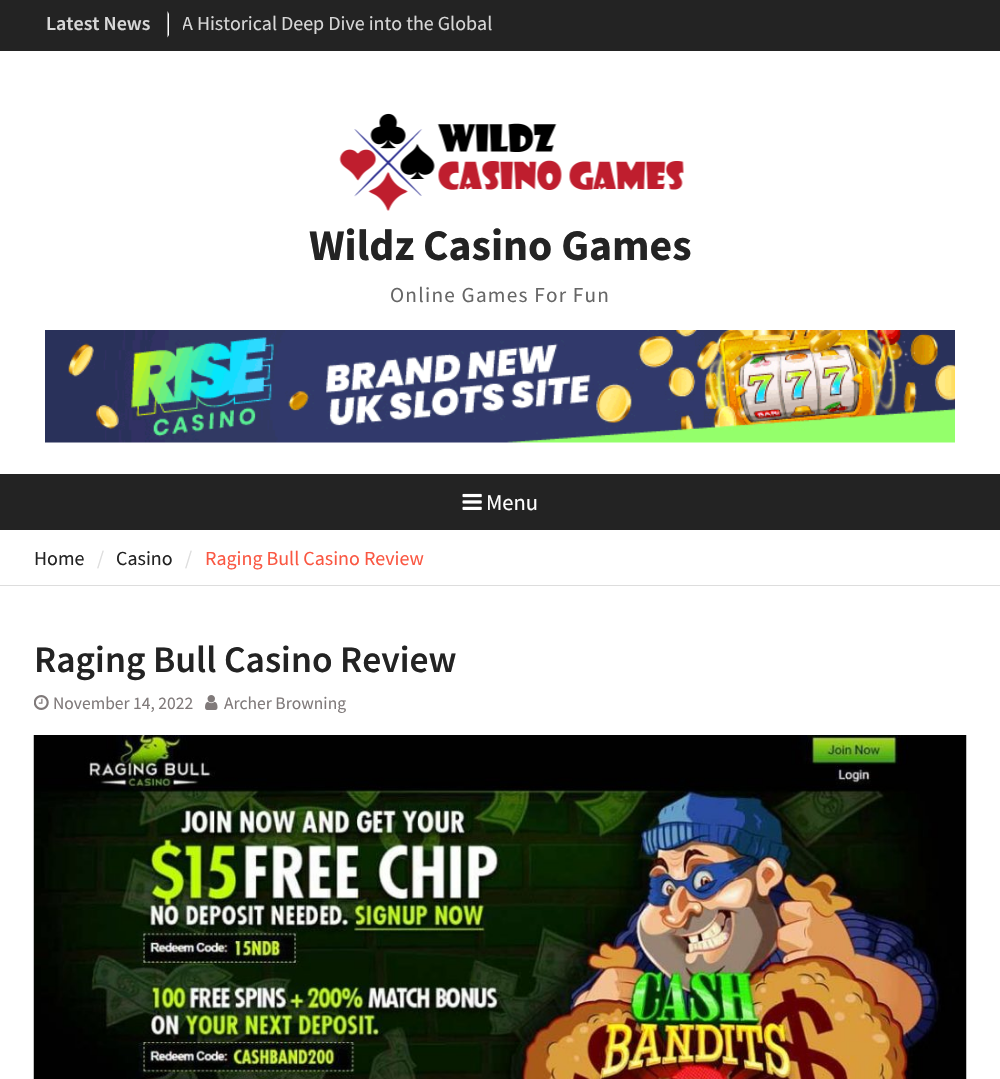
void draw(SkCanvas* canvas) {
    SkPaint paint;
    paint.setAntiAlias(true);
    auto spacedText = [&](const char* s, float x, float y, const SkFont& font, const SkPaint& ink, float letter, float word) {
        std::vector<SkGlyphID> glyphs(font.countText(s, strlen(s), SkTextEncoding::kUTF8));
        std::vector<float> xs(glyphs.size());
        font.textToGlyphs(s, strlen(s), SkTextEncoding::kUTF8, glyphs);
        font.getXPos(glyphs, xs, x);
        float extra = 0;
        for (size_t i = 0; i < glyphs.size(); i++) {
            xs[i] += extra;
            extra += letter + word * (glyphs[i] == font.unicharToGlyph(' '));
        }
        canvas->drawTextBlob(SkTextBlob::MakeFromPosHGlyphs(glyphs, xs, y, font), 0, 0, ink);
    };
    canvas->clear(0xFFFFFFFF);
    paint.setColor(0xFF232323);
    canvas->drawRect(SkRect::MakeXYWH(0, 0, 1000, 51), paint);
    SkFont font1(fontMgr->matchFamilyStyle("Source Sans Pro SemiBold", SkFontStyle(600, SkFontStyle::kNormal_Width, SkFontStyle::kUpright_Slant)), 20);
    font1.setSubpixel(true);
    paint.setColor(0xFFD7D7D7);
    canvas->drawString("Latest News", 46, 30, font1, paint);
    paint.setColor(0xFFFFFFFF);
    canvas->drawPath(SkPathBuilder().moveTo(167.5f, 37.5f).lineTo(167.5f, 11).lineTo(169, 14).lineTo(169, 35).close().detach(), paint);
    canvas->save();
    canvas->clipRect(SkRect::MakeXYWH(183, 8, 331, 26));
    SkFont font2(fontMgr->matchFamilyStyle("Source Sans Pro", SkFontStyle::Normal()), 20);
    font2.setSubpixel(true);
    paint.setColor(0xFFD7D7D7);
    canvas->drawString("A Historical Deep Dive into the Global", 182, 30, font2, paint);
    canvas->restore();
    canvas->drawImageRect(SkImages::DeferredFromEncodedData(SkData::MakeFromFileName("img1.png")), SkRect::MakeXYWH(339, 113, 345, 98), SkSamplingOptions());
    SkFont font3(fontMgr->matchFamilyStyle("Source Sans Pro", SkFontStyle::Bold()), 43.75f);
    font3.setSubpixel(true);
    paint.setColor(0xFF232323);
    canvas->drawString("Wildz Casino Games", 309, 260, font3, paint);
    SkFont font4(fontMgr->matchFamilyStyle("Source Sans Pro", SkFontStyle::Normal()), 21.25f);
    font4.setSubpixel(true);
    paint.setColor(0xFF666666);
    spacedText("Online Games For Fun", 390, 302, font4, paint, 1.25f, 0);
    canvas->drawImageRect(SkImages::DeferredFromEncodedData(SkData::MakeFromFileName("img2.png")), SkRect::MakeXYWH(45, 330, 910, 113), SkSamplingOptions());
    paint.setColor(0xFF232323);
    canvas->drawRect(SkRect::MakeXYWH(0, 474, 1000, 56), paint);
    canvas->drawImageRect(SkImages::DeferredFromEncodedData(SkData::MakeFromFileName("img3.png")), SkRect::MakeXYWH(462, 493, 20, 17), SkSamplingOptions());
    SkFont font5(fontMgr->matchFamilyStyle("Source Sans Pro", SkFontStyle::Normal()), 22.5f);
    font5.setSubpixel(true);
    paint.setColor(0xFFFFFFFF);
    canvas->drawString("Menu", 486, 510, font5, paint);
    paint.setColor(0xFFDDDDDD);
    canvas->drawRect(SkRect::MakeXYWH(0, 585, 1000, 1), paint);
    paint.setColor(0xFF232323);
    canvas->drawString("Home", 34, 565, font2, paint);
    paint.setColor(0xFFDDDDDD);
    canvas->drawString("/", 97, 565, font2, paint);
    paint.setColor(0xFF232323);
    canvas->drawString("Casino", 116, 565, font2, paint);
    paint.setColor(0xFFDDDDDD);
    canvas->drawString("/", 185, 565, font2, paint);
    paint.setColor(0xFFFA5742);
    canvas->drawString("Raging Bull Casino Review", 205, 565, font2, paint);
    SkFont font6(fontMgr->matchFamilyStyle("Source Sans Pro SemiBold", SkFontStyle(600, SkFontStyle::kNormal_Width, SkFontStyle::kUpright_Slant)), 37.5f);
    font6.setSubpixel(true);
    paint.setColor(0xFF232323);
    canvas->drawString("Raging Bull Casino Review", 34, 672, font6, paint);
    canvas->drawImageRect(SkImages::DeferredFromEncodedData(SkData::MakeFromFileName("img4.png")), SkRect::MakeXYWH(34, 695, 15, 15), SkSamplingOptions());
    SkFont font7(fontMgr->matchFamilyStyle("Source Sans Pro", SkFontStyle::Normal()), 17.5f);
    font7.setSubpixel(true);
    paint.setColor(0xFF807A7A);
    canvas->drawString("November 14, 2022", 53, 709, font7, paint);
    canvas->drawImageRect(SkImages::DeferredFromEncodedData(SkData::MakeFromFileName("img5.png")), SkRect::MakeXYWH(205, 695, 13, 15), SkSamplingOptions());
    canvas->drawString("Archer Browning", 224, 709, font7, paint);
    canvas->drawImageRect(SkImages::DeferredFromEncodedData(SkData::MakeFromFileName("img6.png")), SkRect::MakeXYWH(33, 735, 934, 344), SkSamplingOptions());
}
